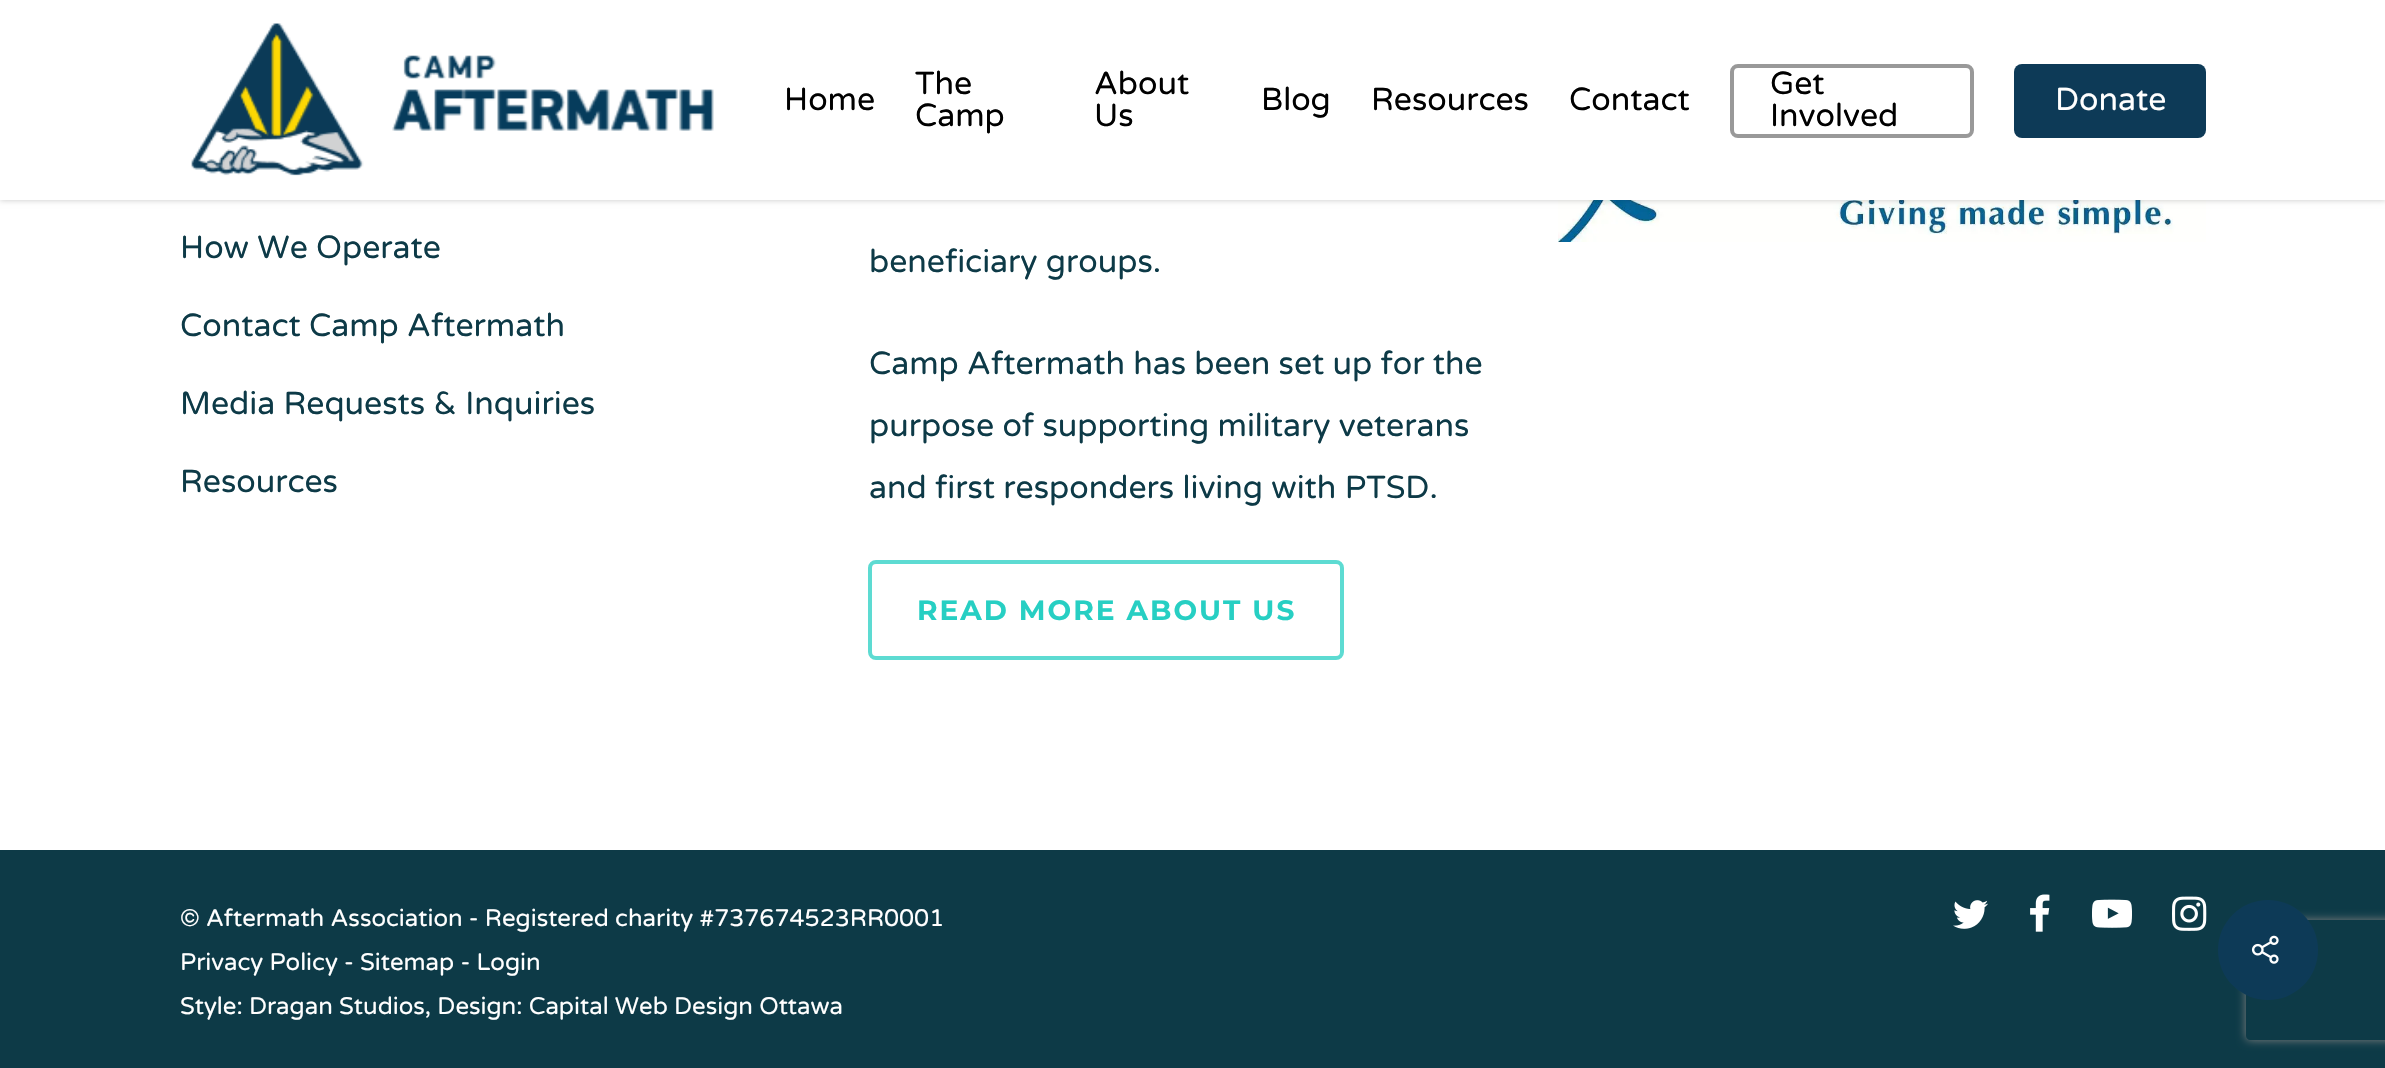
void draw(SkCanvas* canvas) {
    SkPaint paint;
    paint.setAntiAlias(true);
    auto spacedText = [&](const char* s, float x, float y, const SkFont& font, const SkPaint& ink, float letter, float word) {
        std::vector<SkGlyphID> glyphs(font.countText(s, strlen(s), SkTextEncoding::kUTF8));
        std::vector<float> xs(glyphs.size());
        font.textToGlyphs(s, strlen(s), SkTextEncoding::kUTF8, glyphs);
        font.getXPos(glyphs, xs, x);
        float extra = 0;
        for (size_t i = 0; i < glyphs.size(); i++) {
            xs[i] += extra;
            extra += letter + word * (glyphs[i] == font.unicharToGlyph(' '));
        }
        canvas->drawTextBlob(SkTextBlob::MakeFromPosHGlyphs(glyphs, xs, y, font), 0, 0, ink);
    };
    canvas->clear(0xFFFFFFFF);
    canvas->drawImageRect(SkImages::DeferredFromEncodedData(SkData::MakeFromFileName("img2.png")), SkRect::MakeXYWH(1558, 200, 648, 42), SkSamplingOptions());
    paint.setColor(0x38000000);
    paint.setMaskFilter(SkMaskFilter::MakeBlur(kNormal_SkBlurStyle, 3));
    canvas->drawRect(SkRect::MakeXYWH(0, 0, 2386, 200), paint);
    paint.setMaskFilter(nullptr);
    paint.setColor(0xFFFFFFFF);
    canvas->drawRect(SkRect::MakeXYWH(0, 0, 2385, 200), paint);
    canvas->drawImageRect(SkImages::DeferredFromEncodedData(SkData::MakeFromFileName("img1.png")), SkRect::MakeXYWH(191, 23, 523, 153), SkSamplingOptions());
    SkFont font1(fontMgr->matchFamilyStyle("Varela Round", SkFontStyle::Normal()), 32);
    font1.setSubpixel(true);
    paint.setColor(0xFF000000);
    canvas->drawString("Home", 784, 110, font1, paint);
    canvas->drawString("The", 915, 94, font1, paint);
    canvas->drawString("Camp", 915, 126, font1, paint);
    canvas->drawString("About", 1094, 94, font1, paint);
    canvas->drawString("Us", 1094, 126, font1, paint);
    canvas->drawString("Blog", 1261, 110, font1, paint);
    canvas->drawString("Resources", 1371, 110, font1, paint);
    canvas->drawString("Contact", 1569, 110, font1, paint);
    paint.setStyle(SkPaint::kStroke_Style);
    paint.setStrokeWidth(4);
    paint.setColor(0xFF999999);
    canvas->drawRoundRect(SkRect::MakeXYWH(1732, 66, 240, 70), 6, 6, paint);
    paint.setStyle(SkPaint::kFill_Style);
    paint.setColor(0xFF000000);
    canvas->drawString("Get", 1770, 94, font1, paint);
    canvas->drawString("Involved", 1770, 126, font1, paint);
    paint.setColor(0xFF0D3A57);
    canvas->drawRoundRect(SkRect::MakeXYWH(2014, 64, 192, 74), 8, 8, paint);
    paint.setColor(0xFFFFFFFF);
    canvas->drawString("Donate", 2055, 110, font1, paint);
    paint.setColor(0xFF0D3A47);
    canvas->drawString("How We Operate", 180, 258, font1, paint);
    canvas->drawString("Contact Camp Aftermath", 180, 336, font1, paint);
    canvas->drawString("Media Requests & Inquiries", 180, 414, font1, paint);
    canvas->drawString("Resources", 180, 492, font1, paint);
    canvas->drawString("beneficiary groups.", 869, 272, font1, paint);
    canvas->drawString("Camp Aftermath has been set up for the", 869, 374, font1, paint);
    canvas->drawString("purpose of supporting military veterans", 869, 436, font1, paint);
    canvas->drawString("and first responders living with PTSD.", 869, 498, font1, paint);
    paint.setStyle(SkPaint::kStroke_Style);
    paint.setColor(0xFF5DDBD2);
    canvas->drawRoundRect(SkRect::MakeXYWH(870, 562, 472, 96), 6, 6, paint);
    SkFont font2(fontMgr->matchFamilyStyle("Montserrat", SkFontStyle(100, SkFontStyle::kNormal_Width, SkFontStyle::kUpright_Slant)), 28);
    font2.setSubpixel(true);
    paint.setStyle(SkPaint::kFill_Style);
    paint.setColor(0xFF27CFC3);
    spacedText("READ MORE ABOUT US", 917, 620, font2, paint, 2, 0);
    paint.setColor(0xFF0D3A47);
    canvas->drawRect(SkRect::MakeXYWH(0, 850, 2385, 218), paint);
    SkFont font3(fontMgr->matchFamilyStyle("Varela Round", SkFontStyle::Normal()), 24);
    font3.setSubpixel(true);
    paint.setColor(0xFFFFFFFF);
    canvas->drawString("© Aftermath Association - Registered charity #737674523RR0001", 180, 926, font3, paint);
    canvas->drawString("Privacy Policy - Sitemap - Login", 180, 970, font3, paint);
    canvas->drawString("Style: Dragan Studios, Design: Capital Web Design Ottawa", 180, 1014, font3, paint);
    canvas->drawImageRect(SkImages::DeferredFromEncodedData(SkData::MakeFromFileName("img3.png")), SkRect::MakeXYWH(1953, 900, 35, 29), SkSamplingOptions());
    canvas->drawImageRect(SkImages::DeferredFromEncodedData(SkData::MakeFromFileName("img4.png")), SkRect::MakeXYWH(2030, 894, 20, 38), SkSamplingOptions());
    canvas->drawImageRect(SkImages::DeferredFromEncodedData(SkData::MakeFromFileName("img5.png")), SkRect::MakeXYWH(2092, 899, 40, 29), SkSamplingOptions());
    canvas->drawImageRect(SkImages::DeferredFromEncodedData(SkData::MakeFromFileName("img6.png")), SkRect::MakeXYWH(2172, 896, 35, 35), SkSamplingOptions());
    canvas->save();
    canvas->clipPath(SkPathBuilder(SkPathFillType::kEvenOdd).moveTo(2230, 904).lineTo(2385, 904).lineTo(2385, 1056).lineTo(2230, 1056).close().moveTo(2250, 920).lineTo(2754, 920).cubicTo(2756, 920, 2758, 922, 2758, 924).lineTo(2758, 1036).cubicTo(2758, 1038, 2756, 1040, 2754, 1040).lineTo(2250, 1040).cubicTo(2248, 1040, 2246, 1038, 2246, 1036).lineTo(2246, 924).cubicTo(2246, 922, 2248, 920, 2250, 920).close().detach(), true);
    paint.setColor(0xFF808080);
    paint.setMaskFilter(SkMaskFilter::MakeBlur(kNormal_SkBlurStyle, 5));
    canvas->drawRoundRect(SkRect::MakeXYWH(2246, 920, 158, 120), 4, 4, paint);
    paint.setMaskFilter(nullptr);
    canvas->restore();
    paint.setColor(0xFF0D3A57);
    canvas->drawCircle(2268, 950, 50, paint);
    canvas->drawImageRect(SkImages::DeferredFromEncodedData(SkData::MakeFromFileName("img7.png")), SkRect::MakeXYWH(2251, 935, 28, 29), SkSamplingOptions());
}
